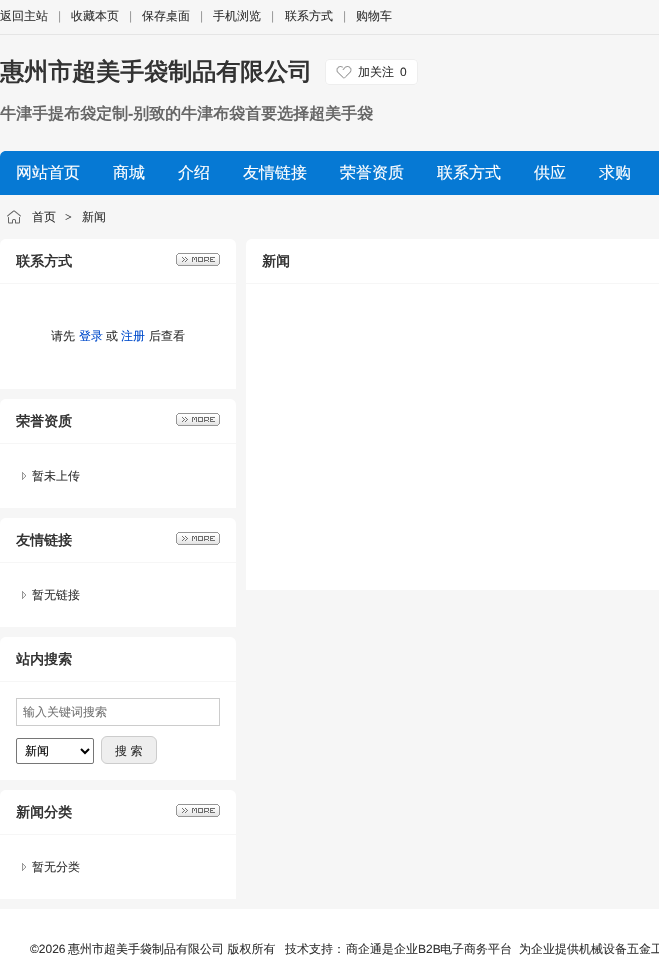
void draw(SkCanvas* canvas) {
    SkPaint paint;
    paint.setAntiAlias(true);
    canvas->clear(0xFFF6F6F6);
    paint.setColor(0xFFE5E5E5);
    canvas->drawRect(SkRect::MakeXYWH(0, 34, 659, 1), paint);
    SkFont font1(fontMgr->matchFamilyStyle("WenQuanYi Zen Hei", SkFontStyle(500, SkFontStyle::kNormal_Width, SkFontStyle::kUpright_Slant)), 12);
    font1.setSubpixel(true);
    paint.setColor(0xFF333333);
    canvas->drawString("返回主站", 0, 20, font1, paint);
    SkFont font2(fontMgr->matchFamilyStyle("Liberation Sans", SkFontStyle::Normal()), 12);
    font2.setSubpixel(true);
    paint.setColor(0xFF999999);
    canvas->drawString("|", 58, 20, font2, paint);
    paint.setColor(0xFF333333);
    canvas->drawString("收藏本页", 71, 20, font1, paint);
    paint.setColor(0xFF999999);
    canvas->drawString("|", 129, 20, font2, paint);
    paint.setColor(0xFF333333);
    canvas->drawString("保存桌面", 142, 20, font1, paint);
    paint.setColor(0xFF999999);
    canvas->drawString("|", 200, 20, font2, paint);
    paint.setColor(0xFF333333);
    canvas->drawString("手机浏览", 213, 20, font1, paint);
    paint.setColor(0xFF999999);
    canvas->drawString("|", 271, 20, font2, paint);
    paint.setColor(0xFF333333);
    canvas->drawString("联系方式", 285, 20, font1, paint);
    paint.setColor(0xFF999999);
    canvas->drawString("|", 343, 20, font2, paint);
    paint.setColor(0xFF333333);
    canvas->drawString("购物车", 356, 20, font1, paint);
    SkFont font3(fontMgr->matchFamilyStyle("WenQuanYi Zen Hei", SkFontStyle::Bold()), 24);
    font3.setSubpixel(true);
    canvas->drawString("惠州市超美手袋制品有限公司", 0, 80, font3, paint);
    paint.setColor(0xFFFFFFFF);
    canvas->drawRoundRect(SkRect::MakeXYWH(325, 59, 93, 26), 4, 4, paint);
    canvas->drawImageRect(SkImages::DeferredFromEncodedData(SkData::MakeFromFileName("img1.png")), SkRect::MakeXYWH(336, 66, 16, 13), SkSamplingOptions());
    paint.setStyle(SkPaint::kStroke_Style);
    paint.setStrokeWidth(1);
    paint.setColor(0xFFEEEEEE);
    canvas->drawRoundRect(SkRect::MakeXYWH(325.5f, 59.5f, 92, 25), 3.5f, 3.5f, paint);
    paint.setStyle(SkPaint::kFill_Style);
    paint.setColor(0xFF333333);
    canvas->drawString("加关注", 358, 76, font1, paint);
    canvas->drawString("0", 400, 76, font2, paint);
    SkFont font4(fontMgr->matchFamilyStyle("WenQuanYi Zen Hei", SkFontStyle::Bold()), 16);
    font4.setSubpixel(true);
    paint.setColor(0xFF666666);
    canvas->drawString("牛津手提布袋定制", 0, 119, font4, paint);
    SkFont font5(fontMgr->matchFamilyStyle("Liberation Sans", SkFontStyle::Bold()), 16);
    font5.setSubpixel(true);
    canvas->drawString("-", 128, 119, font5, paint);
    canvas->drawString("别致的牛津布袋首要选择超美手袋", 133, 119, font4, paint);
    paint.setColor(0xFF0679D4);
    canvas->drawPath(SkPathBuilder().moveTo(6, 151).lineTo(659, 151).cubicTo(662.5f, 151, 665, 153.5f, 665, 157).lineTo(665, 195).lineTo(0, 195).lineTo(0, 157).cubicTo(0, 153.5f, 2.5f, 151, 6, 151).close().detach(), paint);
    SkFont font6(fontMgr->matchFamilyStyle("WenQuanYi Zen Hei", SkFontStyle(500, SkFontStyle::kNormal_Width, SkFontStyle::kUpright_Slant)), 16);
    font6.setSubpixel(true);
    paint.setColor(0xFFFFFFFF);
    canvas->drawString("网站首页", 16, 178, font6, paint);
    canvas->drawString("商城", 113, 178, font6, paint);
    canvas->drawString("介绍", 178, 178, font6, paint);
    canvas->drawString("友情链接", 243, 178, font6, paint);
    canvas->drawString("荣誉资质", 340, 178, font6, paint);
    canvas->drawString("联系方式", 437, 178, font6, paint);
    canvas->drawString("供应", 534, 178, font6, paint);
    canvas->drawString("求购", 599, 178, font6, paint);
    canvas->drawImageRect(SkImages::DeferredFromEncodedData(SkData::MakeFromFileName("img2.png")), SkRect::MakeXYWH(7, 210, 14, 14), SkSamplingOptions());
    paint.setColor(0xFF333333);
    canvas->drawString("首页", 32, 221, font1, paint);
    SkFont font7(fontMgr->matchFamilyStyle("Liberation Serif", SkFontStyle::Bold()), 12);
    font7.setSubpixel(true);
    paint.setColor(0xFF444444);
    canvas->drawString(">", 65, 221, font7, paint);
    paint.setColor(0xFF333333);
    canvas->drawString("新闻", 82, 221, font1, paint);
    paint.setColor(0xFFFFFFFF);
    canvas->drawPath(SkPathBuilder().moveTo(6, 239).lineTo(230, 239).cubicTo(233.5f, 239, 236, 241.5f, 236, 245).lineTo(236, 284).lineTo(0, 284).lineTo(0, 245).cubicTo(0, 241.5f, 2.5f, 239, 6, 239).close().detach(), paint);
    paint.setColor(0xFFF6F6F6);
    canvas->drawRect(SkRect::MakeXYWH(0, 283, 236, 1), paint);
    SkFont font8(fontMgr->matchFamilyStyle("WenQuanYi Zen Hei", SkFontStyle::Bold()), 14);
    font8.setSubpixel(true);
    paint.setColor(0xFF333333);
    canvas->drawString("联系方式", 16, 266, font8, paint);
    canvas->drawImageRect(SkImages::DeferredFromEncodedData(SkData::MakeFromFileName("img3.png")), SkRect::MakeXYWH(176, 253, 44, 13), SkSamplingOptions());
    paint.setColor(0xFFFFFFFF);
    canvas->drawRect(SkRect::MakeXYWH(0, 284, 236, 105), paint);
    paint.setColor(0xFF333333);
    canvas->drawString("请先", 51, 340, font1, paint);
    paint.setColor(0xFF014CCC);
    canvas->drawString("登录", 79, 340, font1, paint);
    paint.setColor(0xFF333333);
    canvas->drawString("或", 106, 340, font1, paint);
    paint.setColor(0xFF014CCC);
    canvas->drawString("注册", 121, 340, font1, paint);
    paint.setColor(0xFF333333);
    canvas->drawString("后查看", 149, 340, font1, paint);
    paint.setColor(0xFFFFFFFF);
    canvas->drawPath(SkPathBuilder().moveTo(6, 399).lineTo(230, 399).cubicTo(233.5f, 399, 236, 401.5f, 236, 405).lineTo(236, 444).lineTo(0, 444).lineTo(0, 405).cubicTo(0, 401.5f, 2.5f, 399, 6, 399).close().detach(), paint);
    paint.setColor(0xFFF6F6F6);
    canvas->drawRect(SkRect::MakeXYWH(0, 443, 236, 1), paint);
    paint.setColor(0xFF333333);
    canvas->drawString("荣誉资质", 16, 426, font8, paint);
    canvas->drawImageRect(SkImages::DeferredFromEncodedData(SkData::MakeFromFileName("img3.png")), SkRect::MakeXYWH(176, 413, 44, 13), SkSamplingOptions());
    paint.setColor(0xFFFFFFFF);
    canvas->drawRect(SkRect::MakeXYWH(0, 444, 236, 64), paint);
    canvas->drawImageRect(SkImages::DeferredFromEncodedData(SkData::MakeFromFileName("img4.png")), SkRect::MakeXYWH(22, 472, 4, 8), SkSamplingOptions());
    paint.setColor(0xFF333333);
    canvas->drawString("暂未上传", 32, 480, font1, paint);
    paint.setColor(0xFFFFFFFF);
    canvas->drawPath(SkPathBuilder().moveTo(6, 518).lineTo(230, 518).cubicTo(233.5f, 518, 236, 520.5f, 236, 524).lineTo(236, 563).lineTo(0, 563).lineTo(0, 524).cubicTo(0, 520.5f, 2.5f, 518, 6, 518).close().detach(), paint);
    paint.setColor(0xFFF6F6F6);
    canvas->drawRect(SkRect::MakeXYWH(0, 562, 236, 1), paint);
    paint.setColor(0xFF333333);
    canvas->drawString("友情链接", 16, 545, font8, paint);
    canvas->drawImageRect(SkImages::DeferredFromEncodedData(SkData::MakeFromFileName("img3.png")), SkRect::MakeXYWH(176, 532, 44, 13), SkSamplingOptions());
    paint.setColor(0xFFFFFFFF);
    canvas->drawRect(SkRect::MakeXYWH(0, 563, 236, 64), paint);
    canvas->drawImageRect(SkImages::DeferredFromEncodedData(SkData::MakeFromFileName("img4.png")), SkRect::MakeXYWH(22, 591, 4, 8), SkSamplingOptions());
    paint.setColor(0xFF333333);
    canvas->drawString("暂无链接", 32, 599, font1, paint);
    paint.setColor(0xFFFFFFFF);
    canvas->drawPath(SkPathBuilder().moveTo(6, 637).lineTo(230, 637).cubicTo(233.5f, 637, 236, 639.5f, 236, 643).lineTo(236, 682).lineTo(0, 682).lineTo(0, 643).cubicTo(0, 639.5f, 2.5f, 637, 6, 637).close().detach(), paint);
    paint.setColor(0xFFF6F6F6);
    canvas->drawRect(SkRect::MakeXYWH(0, 681, 236, 1), paint);
    paint.setColor(0xFF333333);
    canvas->drawString("站内搜索", 16, 664, font8, paint);
    paint.setColor(0xFFFFFFFF);
    canvas->drawRect(SkRect::MakeXYWH(0, 682, 236, 98), paint);
    paint.setStyle(SkPaint::kStroke_Style);
    paint.setColor(0xFFCCCCCC);
    canvas->drawRect(SkRect::MakeXYWH(16.5f, 698.5f, 203, 27), paint);
    paint.setStyle(SkPaint::kFill_Style);
    paint.setColor(0xFF757575);
    canvas->drawString("输入关键词搜索", 23, 716, font1, paint);
    paint.setStyle(SkPaint::kStroke_Style);
    paint.setColor(0xFF767676);
    canvas->drawRoundRect(SkRect::MakeXYWH(16.5f, 738.5f, 77, 25), 1.5f, 1.5f, paint);
    paint.setStrokeWidth(2);
    paint.setColor(0xFF000000);
    canvas->drawPath(SkPathBuilder().moveTo(81, 749).lineTo(85, 753).lineTo(89, 749).detach(), paint);
    paint.setStyle(SkPaint::kFill_Style);
    canvas->drawString("新闻", 25, 755, font1, paint);
    paint.setColor(0xFFEEEEEE);
    canvas->drawRoundRect(SkRect::MakeXYWH(101.5f, 736.5f, 55, 27), 5.5f, 5.5f, paint);
    paint.setStyle(SkPaint::kStroke_Style);
    paint.setStrokeWidth(1);
    paint.setColor(0xFFCCCCCC);
    canvas->drawRoundRect(SkRect::MakeXYWH(101.5f, 736.5f, 55, 27), 5.5f, 5.5f, paint);
    paint.setStyle(SkPaint::kFill_Style);
    paint.setColor(0xFF333333);
    canvas->drawString("搜 索", 115, 755, font1, paint);
    paint.setColor(0xFFFFFFFF);
    canvas->drawPath(SkPathBuilder().moveTo(6, 790).lineTo(230, 790).cubicTo(233.5f, 790, 236, 792.5f, 236, 796).lineTo(236, 835).lineTo(0, 835).lineTo(0, 796).cubicTo(0, 792.5f, 2.5f, 790, 6, 790).close().detach(), paint);
    paint.setColor(0xFFF6F6F6);
    canvas->drawRect(SkRect::MakeXYWH(0, 834, 236, 1), paint);
    paint.setColor(0xFF333333);
    canvas->drawString("新闻分类", 16, 817, font8, paint);
    canvas->drawImageRect(SkImages::DeferredFromEncodedData(SkData::MakeFromFileName("img3.png")), SkRect::MakeXYWH(176, 804, 44, 13), SkSamplingOptions());
    paint.setColor(0xFFFFFFFF);
    canvas->drawRect(SkRect::MakeXYWH(0, 835, 236, 64), paint);
    canvas->drawImageRect(SkImages::DeferredFromEncodedData(SkData::MakeFromFileName("img4.png")), SkRect::MakeXYWH(22, 863, 4, 8), SkSamplingOptions());
    paint.setColor(0xFF333333);
    canvas->drawString("暂无分类", 32, 871, font1, paint);
    paint.setColor(0xFFFFFFFF);
    canvas->drawPath(SkPathBuilder().moveTo(252, 239).lineTo(659, 239).cubicTo(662.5f, 239, 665, 241.5f, 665, 245).lineTo(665, 284).lineTo(246, 284).lineTo(246, 245).cubicTo(246, 241.5f, 248.5f, 239, 252, 239).close().detach(), paint);
    paint.setColor(0xFFF6F6F6);
    canvas->drawRect(SkRect::MakeXYWH(246, 283, 413, 1), paint);
    paint.setColor(0xFF333333);
    canvas->drawString("新闻", 262, 266, font8, paint);
    paint.setColor(0xFFFFFFFF);
    canvas->drawRect(SkRect::MakeXYWH(246, 284, 413, 306), paint);
    canvas->drawRect(SkRect::MakeXYWH(0, 909, 659, 46), paint);
    paint.setColor(0xFF333333);
    canvas->drawString("©2026", 30, 953, font2, paint);
    canvas->drawString("惠州市超美手袋制品有限公司 版权所有", 68, 953, font1, paint);
    canvas->drawString("技术支持：", 285, 953, font1, paint);
    canvas->drawString("商企通是企业", 346, 953, font1, paint);
    canvas->drawString("B2B", 418, 953, font2, paint);
    canvas->drawString("电子商务平台", 440, 953, font1, paint);
    canvas->drawString("为企业提供机械设备五金工", 519, 953, font1, paint);
}
